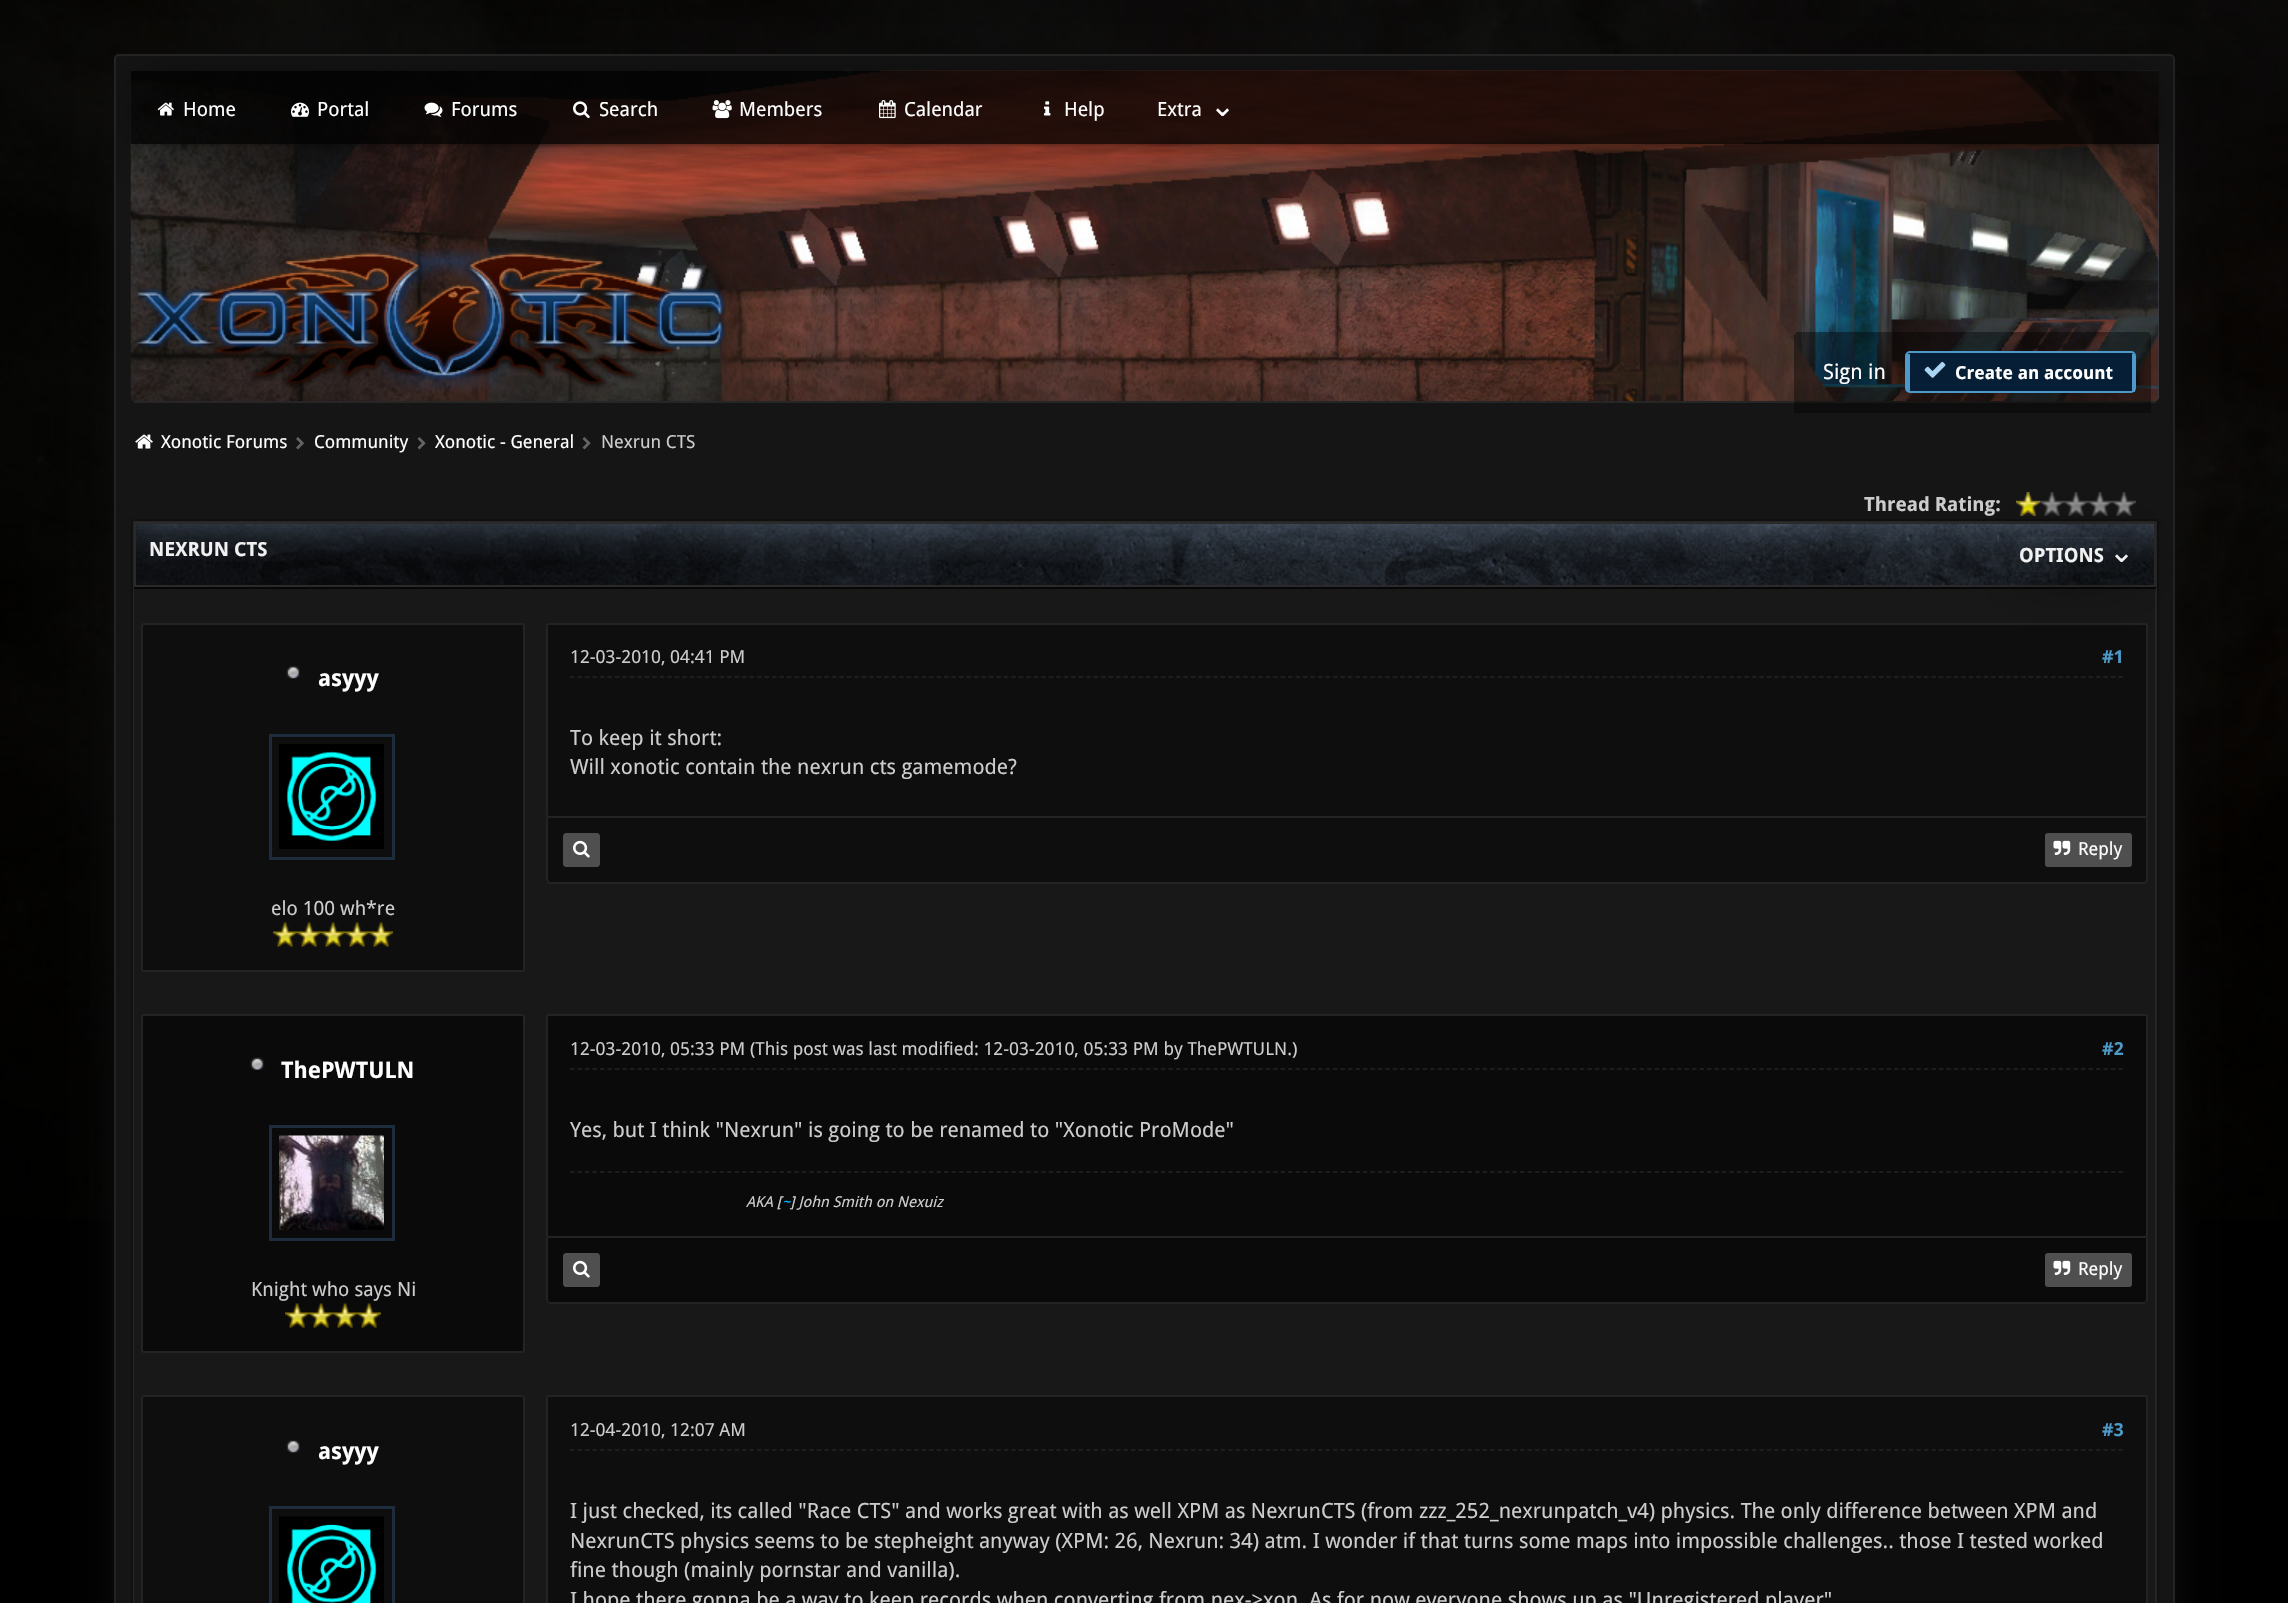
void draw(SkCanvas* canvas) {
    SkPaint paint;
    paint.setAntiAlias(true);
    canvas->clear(0xFF000000);
    canvas->drawImageRect(SkImages::DeferredFromEncodedData(SkData::MakeFromFileName("img1.png")), SkRect::MakeXYWH(0, 0, 2288, 1219), SkSamplingOptions());
    paint.setColor(0xFF0D0D0D);
    paint.setMaskFilter(SkMaskFilter::MakeBlur(kNormal_SkBlurStyle, 19));
    canvas->drawRoundRect(SkRect::MakeXYWH(114, 62, 2061, 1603), 5, 5, paint);
    paint.setMaskFilter(nullptr);
    paint.setColor(0xFF151515);
    canvas->drawRoundRect(SkRect::MakeXYWH(116, 56, 2058, 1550), 3, 3, paint);
    paint.setStyle(SkPaint::kStroke_Style);
    paint.setStrokeWidth(2);
    paint.setColor(0xFF232323);
    canvas->drawRoundRect(SkRect::MakeXYWH(115, 55, 2059, 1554), 4, 4, paint);
    paint.setStyle(SkPaint::kFill_Style);
    paint.setColor(0xFF393B47);
    canvas->drawPath(SkPathBuilder().moveTo(131, 71).lineTo(2159, 71).lineTo(2159, 396).cubicTo(2159, 399.5f, 2156.5f, 402, 2153, 402).lineTo(137, 402).cubicTo(133.5f, 402, 131, 399.5f, 131, 396).close().detach(), paint);
    canvas->drawImageRect(SkImages::DeferredFromEncodedData(SkData::MakeFromFileName("img9.png")), SkRect::MakeXYWH(130, 70, 2029, 332), SkSamplingOptions());
    paint.setColor(0xCC000000);
    canvas->drawRect(SkRect::MakeXYWH(131, 71, 2028, 73), paint);
    canvas->save();
    canvas->clipPath(SkPathBuilder(SkPathFillType::kEvenOdd).moveTo(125, 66).lineTo(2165, 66).lineTo(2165, 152).lineTo(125, 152).close().moveTo(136, 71).lineTo(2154, 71).cubicTo(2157, 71, 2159, 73, 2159, 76).lineTo(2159, 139).cubicTo(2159, 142, 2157, 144, 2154, 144).lineTo(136, 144).cubicTo(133, 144, 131, 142, 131, 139).lineTo(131, 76).cubicTo(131, 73, 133, 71, 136, 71).close().detach(), true);
    paint.setColor(0x33000000);
    paint.setMaskFilter(SkMaskFilter::MakeBlur(kNormal_SkBlurStyle, 1.5f));
    canvas->drawRoundRect(SkRect::MakeXYWH(131, 72, 2028, 74), 5, 5, paint);
    paint.setMaskFilter(nullptr);
    canvas->restore();
    canvas->save();
    canvas->clipPath(SkPathBuilder().moveTo(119, 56).lineTo(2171, 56).cubicTo(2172.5f, 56, 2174, 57.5f, 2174, 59).lineTo(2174, 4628).cubicTo(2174, 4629.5f, 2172.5f, 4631, 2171, 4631).lineTo(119, 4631).cubicTo(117.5f, 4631, 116, 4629.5f, 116, 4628).lineTo(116, 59).cubicTo(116, 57.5f, 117.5f, 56, 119, 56).close().detach(), true);
    canvas->clipPath(SkPathBuilder(SkPathFillType::kEvenOdd).moveTo(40, 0).lineTo(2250, 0).lineTo(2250, 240).lineTo(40, 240).close().moveTo(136, 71).lineTo(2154, 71).cubicTo(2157, 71, 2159, 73, 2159, 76).lineTo(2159, 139).cubicTo(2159, 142, 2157, 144, 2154, 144).lineTo(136, 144).cubicTo(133, 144, 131, 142, 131, 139).lineTo(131, 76).cubicTo(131, 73, 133, 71, 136, 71).close().detach(), true);
    paint.setColor(0x80000000);
    paint.setMaskFilter(SkMaskFilter::MakeBlur(kNormal_SkBlurStyle, 30));
    canvas->drawRoundRect(SkRect::MakeXYWH(131, 75, 2028, 74), 5, 5, paint);
    paint.setMaskFilter(nullptr);
    canvas->restore();
    canvas->drawImageRect(SkImages::DeferredFromEncodedData(SkData::MakeFromFileName("img2.png")), SkRect::MakeXYWH(157, 102, 17, 14), SkSamplingOptions());
    SkFont font1(fontMgr->matchFamilyStyle("Droid Sans", SkFontStyle::Normal()), 19.5f);
    font1.setSubpixel(true);
    paint.setColor(0xFFFFFFFF);
    canvas->drawString("Home", 183, 116, font1, paint);
    canvas->drawImageRect(SkImages::DeferredFromEncodedData(SkData::MakeFromFileName("img3.png")), SkRect::MakeXYWH(291, 102, 18, 15), SkSamplingOptions());
    canvas->drawString("Portal", 317, 116, font1, paint);
    canvas->drawImageRect(SkImages::DeferredFromEncodedData(SkData::MakeFromFileName("img4.png")), SkRect::MakeXYWH(424, 102, 19, 15), SkSamplingOptions());
    canvas->drawString("Forums", 451, 116, font1, paint);
    canvas->drawImageRect(SkImages::DeferredFromEncodedData(SkData::MakeFromFileName("img5.png")), SkRect::MakeXYWH(573, 101, 17, 18), SkSamplingOptions());
    canvas->drawString("Search", 599, 116, font1, paint);
    canvas->drawImageRect(SkImages::DeferredFromEncodedData(SkData::MakeFromFileName("img6.png")), SkRect::MakeXYWH(712, 100, 20, 19), SkSamplingOptions());
    canvas->drawString("Members", 739, 116, font1, paint);
    canvas->drawImageRect(SkImages::DeferredFromEncodedData(SkData::MakeFromFileName("img7.png")), SkRect::MakeXYWH(879, 100, 17, 19), SkSamplingOptions());
    canvas->drawString("Calendar", 904, 116, font1, paint);
    canvas->drawImageRect(SkImages::DeferredFromEncodedData(SkData::MakeFromFileName("img8.png")), SkRect::MakeXYWH(1044, 101, 7, 15), SkSamplingOptions());
    canvas->drawString("Help", 1064, 116, font1, paint);
    canvas->drawString("Extra", 1157, 116, font1, paint);
    SkFont font2(fontMgr->matchFamilyStyle("DejaVu Sans", SkFontStyle::Normal()), 30);
    font2.setSubpixel(true);
    canvas->drawString("⌄", 1210, 116, font2, paint);
    paint.setColor(0xFF262626);
    canvas->drawRect(SkRect::MakeXYWH(134, 401, 2022, 2), paint);
    canvas->drawImageRect(SkImages::DeferredFromEncodedData(SkData::MakeFromFileName("img10.png")), SkRect::MakeXYWH(138, 247, 588, 144), SkSamplingOptions());
    paint.setColor(0x66000000);
    canvas->drawPath(SkPathBuilder().moveTo(1799, 332).lineTo(2146, 332).cubicTo(2149, 332, 2151, 334, 2151, 337).lineTo(2151, 413).lineTo(1794, 413).lineTo(1794, 337).cubicTo(1794, 334, 1796, 332, 1799, 332).close().detach(), paint);
    SkFont font3(fontMgr->matchFamilyStyle("Droid Sans", SkFontStyle::Normal()), 21);
    font3.setSubpixel(true);
    paint.setColor(0xFFFFFFFF);
    canvas->drawString("Sign in", 1823, 379, font3, paint);
    paint.setColor(0xFF071F36);
    canvas->drawRect(SkRect::MakeXYWH(1910, 353, 222, 38), paint);
    paint.setStyle(SkPaint::kStroke_Style);
    paint.setColor(0xFF4D99C9);
    canvas->drawRoundRect(SkRect::MakeXYWH(1906, 352, 229, 40), 4, 4, paint);
    paint.setStyle(SkPaint::kFill_Style);
    canvas->drawRect(SkRect::MakeXYWH(2132, 354, 3, 38), paint);
    canvas->drawRect(SkRect::MakeXYWH(1907, 354, 3, 38), paint);
    canvas->drawImageRect(SkImages::DeferredFromEncodedData(SkData::MakeFromFileName("img11.png")), SkRect::MakeXYWH(1924, 361, 22, 17), SkSamplingOptions());
    SkFont font4(fontMgr->matchFamilyStyle("Droid Sans", SkFontStyle::Bold()), 18);
    font4.setSubpixel(true);
    paint.setColor(0xFFFFFFFF);
    canvas->drawString("Create an account", 1955, 379, font4, paint);
    canvas->drawImageRect(SkImages::DeferredFromEncodedData(SkData::MakeFromFileName("img12.png")), SkRect::MakeXYWH(135, 434, 18, 15), SkSamplingOptions());
    SkFont font5(fontMgr->matchFamilyStyle("Droid Sans", SkFontStyle::Normal()), 18);
    font5.setSubpixel(true);
    canvas->drawString("Xonotic Forums", 161, 448, font5, paint);
    canvas->drawImageRect(SkImages::DeferredFromEncodedData(SkData::MakeFromFileName("img13.png")), SkRect::MakeXYWH(296, 437, 8, 13), SkSamplingOptions());
    canvas->drawString("Community", 314, 448, font5, paint);
    canvas->drawImageRect(SkImages::DeferredFromEncodedData(SkData::MakeFromFileName("img14.png")), SkRect::MakeXYWH(417, 437, 9, 13), SkSamplingOptions());
    canvas->drawString("Xonotic - General", 435, 448, font5, paint);
    canvas->drawImageRect(SkImages::DeferredFromEncodedData(SkData::MakeFromFileName("img14.png")), SkRect::MakeXYWH(582, 437, 9, 13), SkSamplingOptions());
    paint.setColor(0xFFCCCCCC);
    canvas->drawString("Nexrun CTS", 601, 448, font5, paint);
    SkFont font6(fontMgr->matchFamilyStyle("Droid Sans", SkFontStyle::Bold()), 19.5f);
    font6.setSubpixel(true);
    canvas->drawString("Thread Rating:", 1864, 511, font6, paint);
    canvas->drawImageRect(SkImages::DeferredFromEncodedData(SkData::MakeFromFileName("img15.png")), SkRect::MakeXYWH(2016, 492, 120, 24), SkSamplingOptions());
    paint.setColor(0xFF181818);
    canvas->drawRoundRect(SkRect::MakeXYWH(133, 522, 2023, 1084), 0.5f, 0.5f, paint);
    paint.setStyle(SkPaint::kStroke_Style);
    paint.setColor(0xFF262626);
    canvas->drawRoundRect(SkRect::MakeXYWH(133, 522, 2023, 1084), 0.5f, 0.5f, paint);
    paint.setColor(0xFF101010);
    canvas->drawRoundRect(SkRect::MakeXYWH(132, 520, 2026, 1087), 2, 2, paint);
    canvas->drawImageRect(SkImages::DeferredFromEncodedData(SkData::MakeFromFileName("img17.png")), SkRect::MakeXYWH(134, 522, 2022, 63), SkSamplingOptions());
    paint.setColor(0xFF2A2A2A);
    canvas->drawPath(SkPathBuilder().moveTo(137, 523).lineTo(2153, 523).cubicTo(2154, 523, 2155, 524, 2155, 525).lineTo(2155, 586).lineTo(135, 586).lineTo(135, 525).cubicTo(135, 524, 136, 523, 137, 523).close().detach(), paint);
    paint.setStyle(SkPaint::kFill_Style);
    paint.setColor(0xFF070707);
    canvas->drawRect(SkRect::MakeXYWH(134, 587, 2022, 2), paint);
    paint.setColor(0xFF0E0E0E);
    canvas->drawRoundRect(SkRect::MakeXYWH(547, 624, 1600, 193), 2, 2, paint);
    paint.setStyle(SkPaint::kStroke_Style);
    paint.setColor(0xFF232323);
    canvas->drawRoundRect(SkRect::MakeXYWH(547, 624, 1600, 193), 2, 2, paint);
    canvas->save();
    canvas->clipPath(SkPathBuilder().moveTo(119, 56).lineTo(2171, 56).cubicTo(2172.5f, 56, 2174, 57.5f, 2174, 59).lineTo(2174, 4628).cubicTo(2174, 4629.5f, 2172.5f, 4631, 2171, 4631).lineTo(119, 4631).cubicTo(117.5f, 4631, 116, 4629.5f, 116, 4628).lineTo(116, 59).cubicTo(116, 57.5f, 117.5f, 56, 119, 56).close().detach(), true);
    canvas->clipPath(SkPathBuilder(SkPathFillType::kEvenOdd).moveTo(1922, 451).lineTo(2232, 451).lineTo(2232, 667).lineTo(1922, 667).close().moveTo(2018, 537).lineTo(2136, 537).cubicTo(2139, 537, 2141, 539, 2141, 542).lineTo(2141, 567).cubicTo(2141, 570, 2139, 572, 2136, 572).lineTo(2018, 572).cubicTo(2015, 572, 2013, 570, 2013, 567).lineTo(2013, 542).cubicTo(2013, 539, 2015, 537, 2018, 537).close().detach(), true);
    paint.setStyle(SkPaint::kFill_Style);
    paint.setColor(0x80000000);
    paint.setMaskFilter(SkMaskFilter::MakeBlur(kNormal_SkBlurStyle, 30));
    canvas->drawRoundRect(SkRect::MakeXYWH(2013, 542, 128, 34), 5, 5, paint);
    paint.setMaskFilter(nullptr);
    canvas->restore();
    canvas->drawImageRect(SkImages::DeferredFromEncodedData(SkData::MakeFromFileName("img16.png")), SkRect::MakeXYWH(2016, 492, 24, 24), SkSamplingOptions());
    paint.setColor(0xFFF1F1F1);
    canvas->drawString("NEXRUN CTS", 149, 556, font6, paint);
    canvas->drawString("OPTIONS", 2019, 562, font6, paint);
    canvas->drawString("⌄", 2109, 562, font2, paint);
    paint.setColor(0xFF0E0E0E);
    canvas->drawRoundRect(SkRect::MakeXYWH(142, 624, 382, 347), 2, 2, paint);
    paint.setStyle(SkPaint::kStroke_Style);
    paint.setColor(0xFF232323);
    canvas->drawRoundRect(SkRect::MakeXYWH(142, 624, 382, 347), 2, 2, paint);
    canvas->drawImageRect(SkImages::DeferredFromEncodedData(SkData::MakeFromFileName("img18.png")), SkRect::MakeXYWH(286, 666, 14, 13), SkSamplingOptions());
    SkFont font7(fontMgr->matchFamilyStyle("Droid Sans", SkFontStyle::Bold()), 22.75f);
    font7.setSubpixel(true);
    paint.setStyle(SkPaint::kFill_Style);
    paint.setColor(0xFFFFFFFF);
    canvas->drawString("asyyy", 318, 686, font7, paint);
    paint.setStyle(SkPaint::kStroke_Style);
    paint.setStrokeWidth(3);
    paint.setColor(0xFF1D2D3D);
    canvas->drawRect(SkRect::MakeXYWH(270.5f, 735.5f, 123, 123), paint);
    canvas->drawImageRect(SkImages::DeferredFromEncodedData(SkData::MakeFromFileName("img19.png")), SkRect::MakeXYWH(279, 744, 105, 105), SkSamplingOptions());
    paint.setStyle(SkPaint::kFill_Style);
    paint.setColor(0xFFCCCCCC);
    canvas->drawString("elo 100 wh*re", 271, 915, font1, paint);
    canvas->drawImageRect(SkImages::DeferredFromEncodedData(SkData::MakeFromFileName("img20.png")), SkRect::MakeXYWH(273, 922, 24, 25), SkSamplingOptions());
    canvas->drawImageRect(SkImages::DeferredFromEncodedData(SkData::MakeFromFileName("img21.png")), SkRect::MakeXYWH(297, 922, 24, 25), SkSamplingOptions());
    canvas->drawImageRect(SkImages::DeferredFromEncodedData(SkData::MakeFromFileName("img21.png")), SkRect::MakeXYWH(321, 922, 24, 25), SkSamplingOptions());
    canvas->drawImageRect(SkImages::DeferredFromEncodedData(SkData::MakeFromFileName("img21.png")), SkRect::MakeXYWH(345, 922, 24, 25), SkSamplingOptions());
    canvas->drawImageRect(SkImages::DeferredFromEncodedData(SkData::MakeFromFileName("img21.png")), SkRect::MakeXYWH(369, 922, 24, 25), SkSamplingOptions());
    paint.setStyle(SkPaint::kStroke_Style);
    paint.setStrokeWidth(1.5f);
    paint.setColor(0xFF232323);
    paint.setPathEffect(SkDashPathEffect::Make({{4.5f, 2.98f}}, 0));
    canvas->drawPath(SkPathBuilder().moveTo(570, 677).lineTo(2124, 677).detach(), paint);
    paint.setPathEffect(nullptr);
    paint.setStyle(SkPaint::kFill_Style);
    paint.setColor(0xFFCCCCCC);
    canvas->drawString("12-03-2010, 04:41 PM", 570, 663, font5, paint);
    paint.setColor(0xFF4D99C9);
    canvas->drawString("#1", 2102, 663, font4, paint);
    paint.setColor(0xFFCCCCCC);
    canvas->drawString("To keep it short:", 570, 745, font3, paint);
    canvas->drawString("Will xonotic contain the nexrun cts gamemode?", 570, 774, font3, paint);
    paint.setColor(0xFF0E0E0E);
    canvas->drawPath(SkPathBuilder().moveTo(546, 818).lineTo(2148, 818).lineTo(2148, 879).cubicTo(2148, 882, 2146, 884, 2143, 884).lineTo(551, 884).cubicTo(548, 884, 546, 882, 546, 879).close().detach(), paint);
    paint.setColor(0xFF232323);
    canvas->drawPath(SkPathBuilder(SkPathFillType::kEvenOdd).moveTo(546, 818).lineTo(2148, 818).lineTo(2148, 879).cubicTo(2148, 881, 2146, 884, 2144, 884).lineTo(550, 884).cubicTo(548, 884, 546, 881, 546, 879).close().moveTo(548, 818).lineTo(2146, 818).lineTo(2146, 879).cubicTo(2146, 881, 2145, 882, 2144, 882).lineTo(550, 882).cubicTo(549, 882, 548, 881, 548, 879).close().detach(), paint);
    paint.setColor(0xFF4F4F4F);
    canvas->drawPath(SkPathBuilder().moveTo(566, 833).lineTo(597, 833).cubicTo(598.5f, 833, 600, 834.5f, 600, 836).lineTo(600, 864).cubicTo(600, 865.5f, 598.5f, 867, 597, 867).lineTo(566, 867).cubicTo(564.5f, 867, 563, 865.5f, 563, 864).lineTo(563, 836).cubicTo(563, 834.5f, 564.5f, 833, 566, 833).close().detach(), paint);
    canvas->drawImageRect(SkImages::DeferredFromEncodedData(SkData::MakeFromFileName("img22.png")), SkRect::MakeXYWH(573, 840, 17, 18), SkSamplingOptions());
    canvas->drawPath(SkPathBuilder().moveTo(2048, 833).lineTo(2129, 833).cubicTo(2131, 833, 2132, 834, 2132, 836).lineTo(2132, 864).cubicTo(2132, 866, 2131, 867, 2129, 867).lineTo(2048, 867).cubicTo(2046, 867, 2045, 866, 2045, 864).lineTo(2045, 836).cubicTo(2045, 834, 2046, 833, 2048, 833).close().detach(), paint);
    canvas->drawImageRect(SkImages::DeferredFromEncodedData(SkData::MakeFromFileName("img23.png")), SkRect::MakeXYWH(2053, 840, 18, 15), SkSamplingOptions());
    paint.setColor(0xFFFFFFFF);
    canvas->drawString("Reply", 2078, 855, font5, paint);
    paint.setColor(0xFF0A0A0A);
    canvas->drawRoundRect(SkRect::MakeXYWH(142, 1015, 382, 337), 2, 2, paint);
    paint.setStyle(SkPaint::kStroke_Style);
    paint.setStrokeWidth(2);
    paint.setColor(0xFF232323);
    canvas->drawRoundRect(SkRect::MakeXYWH(142, 1015, 382, 337), 2, 2, paint);
    canvas->drawImageRect(SkImages::DeferredFromEncodedData(SkData::MakeFromFileName("img24.png")), SkRect::MakeXYWH(250, 1057, 15, 13), SkSamplingOptions());
    paint.setStyle(SkPaint::kFill_Style);
    paint.setColor(0xFFFFFFFF);
    canvas->drawString("ThePWTULN", 281, 1078, font7, paint);
    paint.setStyle(SkPaint::kStroke_Style);
    paint.setStrokeWidth(3);
    paint.setColor(0xFF1D2D3D);
    canvas->drawRect(SkRect::MakeXYWH(270.5f, 1126.5f, 123, 113), paint);
    canvas->drawImageRect(SkImages::DeferredFromEncodedData(SkData::MakeFromFileName("img25.png")), SkRect::MakeXYWH(279, 1135, 105, 95), SkSamplingOptions());
    paint.setStyle(SkPaint::kFill_Style);
    paint.setColor(0xFFCCCCCC);
    canvas->drawString("Knight who says Ni", 251, 1296, font1, paint);
    canvas->drawImageRect(SkImages::DeferredFromEncodedData(SkData::MakeFromFileName("img26.png")), SkRect::MakeXYWH(285, 1303, 24, 25), SkSamplingOptions());
    canvas->drawImageRect(SkImages::DeferredFromEncodedData(SkData::MakeFromFileName("img26.png")), SkRect::MakeXYWH(309, 1303, 24, 25), SkSamplingOptions());
    canvas->drawImageRect(SkImages::DeferredFromEncodedData(SkData::MakeFromFileName("img26.png")), SkRect::MakeXYWH(333, 1303, 24, 25), SkSamplingOptions());
    canvas->drawImageRect(SkImages::DeferredFromEncodedData(SkData::MakeFromFileName("img26.png")), SkRect::MakeXYWH(357, 1303, 24, 25), SkSamplingOptions());
    paint.setColor(0xFF0A0A0A);
    canvas->drawRoundRect(SkRect::MakeXYWH(547, 1015, 1600, 222), 2, 2, paint);
    paint.setStyle(SkPaint::kStroke_Style);
    paint.setStrokeWidth(2);
    paint.setColor(0xFF232323);
    canvas->drawRoundRect(SkRect::MakeXYWH(547, 1015, 1600, 222), 2, 2, paint);
    paint.setStrokeWidth(1.5f);
    paint.setPathEffect(SkDashPathEffect::Make({{4.5f, 2.98f}}, 0));
    canvas->drawPath(SkPathBuilder().moveTo(570, 1069).lineTo(2124, 1069).detach(), paint);
    paint.setPathEffect(nullptr);
    paint.setStyle(SkPaint::kFill_Style);
    paint.setColor(0xFFCCCCCC);
    canvas->drawString("12-03-2010, 05:33 PM (This post was last modified: 12-03-2010, 05:33 PM by ThePWTULN.)", 570, 1055, font5, paint);
    paint.setColor(0xFF4D99C9);
    canvas->drawString("#2", 2102, 1055, font4, paint);
    paint.setColor(0xFFCCCCCC);
    canvas->drawString("Yes, but I think \"Nexrun\" is going to be renamed to \"Xonotic ProMode\"", 570, 1137, font3, paint);
    paint.setStyle(SkPaint::kStroke_Style);
    paint.setColor(0xFF232323);
    paint.setPathEffect(SkDashPathEffect::Make({{4.5f, 2.98f}}, 0));
    canvas->drawPath(SkPathBuilder().moveTo(570, 1172).lineTo(2124, 1172).detach(), paint);
    paint.setPathEffect(nullptr);
    SkFont font8(fontMgr->matchFamilyStyle("Droid Sans", SkFontStyle::Italic()), 15);
    font8.setSubpixel(true);
    paint.setStyle(SkPaint::kFill_Style);
    paint.setColor(0xFFCCCCCC);
    canvas->drawString("AKA [", 746, 1207, font8, paint);
    paint.setColor(0xFF00BFFF);
    canvas->drawString("~", 782, 1207, font8, paint);
    paint.setColor(0xFFCCCCCC);
    canvas->drawString("] John Smith on Nexuiz", 790, 1207, font8, paint);
    paint.setColor(0xFF0A0A0A);
    canvas->drawPath(SkPathBuilder().moveTo(546, 1238).lineTo(2148, 1238).lineTo(2148, 1299).cubicTo(2148, 1302, 2146, 1304, 2143, 1304).lineTo(551, 1304).cubicTo(548, 1304, 546, 1302, 546, 1299).close().detach(), paint);
    paint.setColor(0xFF232323);
    canvas->drawPath(SkPathBuilder(SkPathFillType::kEvenOdd).moveTo(546, 1238).lineTo(2148, 1238).lineTo(2148, 1299).cubicTo(2148, 1301, 2146, 1304, 2144, 1304).lineTo(550, 1304).cubicTo(548, 1304, 546, 1301, 546, 1299).close().moveTo(548, 1238).lineTo(2146, 1238).lineTo(2146, 1299).cubicTo(2146, 1301, 2145, 1302, 2144, 1302).lineTo(550, 1302).cubicTo(549, 1302, 548, 1301, 548, 1299).close().detach(), paint);
    paint.setColor(0xFF4F4F4F);
    canvas->drawPath(SkPathBuilder().moveTo(566, 1253).lineTo(597, 1253).cubicTo(598.5f, 1253, 600, 1254.5f, 600, 1256).lineTo(600, 1284).cubicTo(600, 1285.5f, 598.5f, 1287, 597, 1287).lineTo(566, 1287).cubicTo(564.5f, 1287, 563, 1285.5f, 563, 1284).lineTo(563, 1256).cubicTo(563, 1254.5f, 564.5f, 1253, 566, 1253).close().detach(), paint);
    canvas->drawImageRect(SkImages::DeferredFromEncodedData(SkData::MakeFromFileName("img22.png")), SkRect::MakeXYWH(573, 1260, 17, 18), SkSamplingOptions());
    canvas->drawPath(SkPathBuilder().moveTo(2048, 1253).lineTo(2129, 1253).cubicTo(2131, 1253, 2132, 1254, 2132, 1256).lineTo(2132, 1284).cubicTo(2132, 1286, 2131, 1287, 2129, 1287).lineTo(2048, 1287).cubicTo(2046, 1287, 2045, 1286, 2045, 1284).lineTo(2045, 1256).cubicTo(2045, 1254, 2046, 1253, 2048, 1253).close().detach(), paint);
    canvas->drawImageRect(SkImages::DeferredFromEncodedData(SkData::MakeFromFileName("img23.png")), SkRect::MakeXYWH(2053, 1260, 18, 15), SkSamplingOptions());
    paint.setColor(0xFFFFFFFF);
    canvas->drawString("Reply", 2078, 1275, font5, paint);
    paint.setColor(0xFF0E0E0E);
    canvas->drawRoundRect(SkRect::MakeXYWH(142, 1396, 382, 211), 2, 2, paint);
    paint.setStyle(SkPaint::kStroke_Style);
    paint.setStrokeWidth(2);
    paint.setColor(0xFF232323);
    canvas->drawRoundRect(SkRect::MakeXYWH(142, 1396, 382, 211), 2, 2, paint);
    canvas->drawImageRect(SkImages::DeferredFromEncodedData(SkData::MakeFromFileName("img18.png")), SkRect::MakeXYWH(286, 1440, 14, 13), SkSamplingOptions());
    paint.setStyle(SkPaint::kFill_Style);
    paint.setColor(0xFFFFFFFF);
    canvas->drawString("asyyy", 318, 1459, font7, paint);
    paint.setStyle(SkPaint::kStroke_Style);
    paint.setStrokeWidth(3);
    paint.setColor(0xFF1D2D3D);
    canvas->drawRect(SkRect::MakeXYWH(270.5f, 1507.5f, 123, 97), paint);
    canvas->drawImageRect(SkImages::DeferredFromEncodedData(SkData::MakeFromFileName("img27.png")), SkRect::MakeXYWH(279, 1516, 105, 87), SkSamplingOptions());
    paint.setStyle(SkPaint::kFill_Style);
    paint.setColor(0xFF0E0E0E);
    canvas->drawRoundRect(SkRect::MakeXYWH(547, 1396, 1600, 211), 2, 2, paint);
    paint.setStyle(SkPaint::kStroke_Style);
    paint.setStrokeWidth(2);
    paint.setColor(0xFF232323);
    canvas->drawRoundRect(SkRect::MakeXYWH(547, 1396, 1600, 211), 2, 2, paint);
    paint.setStrokeWidth(1.5f);
    paint.setPathEffect(SkDashPathEffect::Make({{4.5f, 2.98f}}, 0));
    canvas->drawPath(SkPathBuilder().moveTo(570, 1450).lineTo(2124, 1450).detach(), paint);
    paint.setPathEffect(nullptr);
    paint.setStyle(SkPaint::kFill_Style);
    paint.setColor(0xFFCCCCCC);
    canvas->drawString("12-04-2010, 12:07 AM", 570, 1436, font5, paint);
    paint.setColor(0xFF4D99C9);
    canvas->drawString("#3", 2102, 1436, font4, paint);
    paint.setColor(0xFFCCCCCC);
    canvas->drawString("I just checked, its called \"Race CTS\" and works great with as well XPM as NexrunCTS (from zzz_252_nexrunpatch_v4) physics. The only difference between XPM and", 570, 1518, font3, paint);
    canvas->drawString("NexrunCTS physics seems to be stepheight anyway (XPM: 26, Nexrun: 34) atm. I wonder if that turns some maps into impossible challenges.. those I tested worked", 570, 1548, font3, paint);
    canvas->drawString("fine though (mainly pornstar and vanilla).", 570, 1577, font3, paint);
    canvas->drawString("I hope there gonna be a way to keep records when converting from nex->xon. As for now everyone shows up as \"Unregistered player\"", 570, 1607, font3, paint);
}
